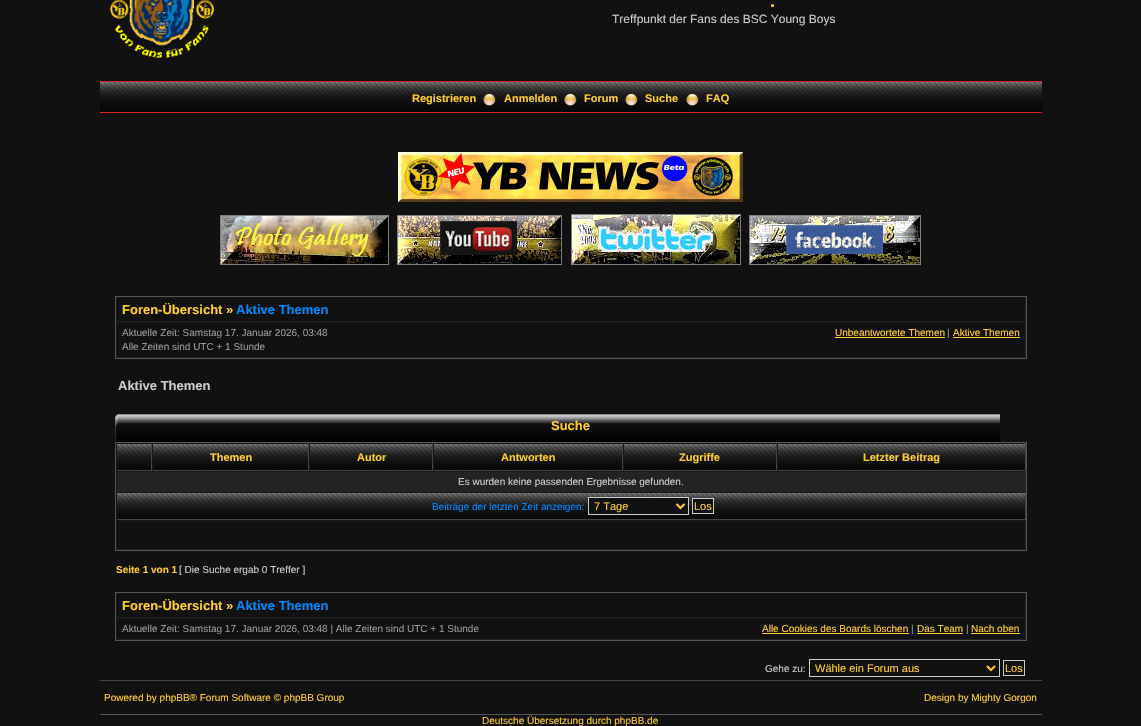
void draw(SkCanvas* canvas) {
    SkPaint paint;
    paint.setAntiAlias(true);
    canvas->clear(0xFF111111);
    canvas->drawImageRect(SkImages::DeferredFromEncodedData(SkData::MakeFromFileName("img1.png")), SkRect::MakeXYWH(110, 0, 104, 58), SkSamplingOptions());
    SkFont font1(fontMgr->matchFamilyStyle("Liberation Sans", SkFontStyle::Bold()), 18);
    font1.setSubpixel(true);
    paint.setColor(0xFFFFCC33);
    canvas->drawString(".", 770, 7, font1, paint);
    SkFont font2(fontMgr->matchFamilyStyle("Liberation Sans", SkFontStyle::Normal()), 12);
    font2.setSubpixel(true);
    paint.setColor(0xFFCCCCCC);
    canvas->drawString("Treffpunkt der Fans des BSC Young Boys", 612, 23, font2, paint);
    canvas->drawImageRect(SkImages::DeferredFromEncodedData(SkData::MakeFromFileName("img2.png")), SkRect::MakeXYWH(100, 82, 942, 30), SkSamplingOptions());
    paint.setColor(0xFFDD2222);
    canvas->drawRect(SkRect::MakeXYWH(100, 81, 942, 1), paint);
    canvas->drawRect(SkRect::MakeXYWH(100, 112, 942, 1), paint);
    SkFont font3(fontMgr->matchFamilyStyle("Liberation Sans", SkFontStyle::Bold()), 11);
    font3.setSubpixel(true);
    paint.setColor(0xFFFFCC33);
    canvas->drawString("Registrieren", 412, 102, font3, paint);
    canvas->drawImageRect(SkImages::DeferredFromEncodedData(SkData::MakeFromFileName("img3.png")), SkRect::MakeXYWH(483, 93, 13, 13), SkSamplingOptions());
    canvas->drawString("Anmelden", 504, 102, font3, paint);
    canvas->drawImageRect(SkImages::DeferredFromEncodedData(SkData::MakeFromFileName("img4.png")), SkRect::MakeXYWH(564, 93, 13, 13), SkSamplingOptions());
    canvas->drawString("Forum", 584, 102, font3, paint);
    canvas->drawImageRect(SkImages::DeferredFromEncodedData(SkData::MakeFromFileName("img5.png")), SkRect::MakeXYWH(625, 93, 13, 13), SkSamplingOptions());
    canvas->drawString("Suche", 645, 102, font3, paint);
    canvas->drawImageRect(SkImages::DeferredFromEncodedData(SkData::MakeFromFileName("img6.png")), SkRect::MakeXYWH(686, 93, 13, 13), SkSamplingOptions());
    canvas->drawString("FAQ", 706, 102, font3, paint);
    canvas->drawImageRect(SkImages::DeferredFromEncodedData(SkData::MakeFromFileName("img7.png")), SkRect::MakeXYWH(398, 152, 345, 50), SkSamplingOptions());
    canvas->drawImageRect(SkImages::DeferredFromEncodedData(SkData::MakeFromFileName("img8.png")), SkRect::MakeXYWH(220, 215, 169, 50), SkSamplingOptions());
    canvas->drawImageRect(SkImages::DeferredFromEncodedData(SkData::MakeFromFileName("img9.png")), SkRect::MakeXYWH(397, 215, 165, 50), SkSamplingOptions());
    canvas->drawImageRect(SkImages::DeferredFromEncodedData(SkData::MakeFromFileName("img10.png")), SkRect::MakeXYWH(571, 214, 170, 51), SkSamplingOptions());
    canvas->drawImageRect(SkImages::DeferredFromEncodedData(SkData::MakeFromFileName("img11.png")), SkRect::MakeXYWH(749, 215, 172, 50), SkSamplingOptions());
    paint.setStyle(SkPaint::kStroke_Style);
    paint.setStrokeWidth(1);
    paint.setColor(0xFF555555);
    canvas->drawRect(SkRect::MakeXYWH(115.5f, 296.5f, 911, 62), paint);
    paint.setStyle(SkPaint::kFill_Style);
    paint.setColor(0xFF181818);
    canvas->drawRect(SkRect::MakeXYWH(116, 297, 910, 1), paint);
    paint.setColor(0xFF222222);
    canvas->drawRect(SkRect::MakeXYWH(1025, 297, 1, 25), paint);
    canvas->drawRect(SkRect::MakeXYWH(116, 321, 910, 1), paint);
    paint.setColor(0xFF181818);
    canvas->drawRect(SkRect::MakeXYWH(116, 297, 1, 25), paint);
    SkFont font4(fontMgr->matchFamilyStyle("Liberation Sans", SkFontStyle::Bold()), 13);
    font4.setSubpixel(true);
    paint.setColor(0xFFFFCC33);
    canvas->drawString("Foren-Übersicht »", 122, 314, font4, paint);
    paint.setColor(0xFF0088FF);
    canvas->drawString("Aktive Themen", 236, 314, font4, paint);
    paint.setColor(0xFF181818);
    canvas->drawRect(SkRect::MakeXYWH(116, 322, 910, 1), paint);
    paint.setColor(0xFF222222);
    canvas->drawRect(SkRect::MakeXYWH(1025, 322, 1, 36), paint);
    canvas->drawRect(SkRect::MakeXYWH(116, 357, 910, 1), paint);
    paint.setColor(0xFF181818);
    canvas->drawRect(SkRect::MakeXYWH(116, 322, 1, 36), paint);
    SkFont font5(fontMgr->matchFamilyStyle("Liberation Sans", SkFontStyle::Normal()), 10);
    font5.setSubpixel(true);
    paint.setColor(0xFF999999);
    canvas->drawString("Aktuelle Zeit: Samstag 17. Januar 2026, 03:48", 122, 336, font5, paint);
    canvas->drawString("Alle Zeiten sind UTC + 1 Stunde", 122, 350, font5, paint);
    paint.setColor(0xFFFFCC33);
    canvas->drawString("Unbeantwortete Themen", 835, 336, font5, paint);
    canvas->drawRect(SkRect::MakeXYWH(835, 337, 110, 1), paint);
    paint.setColor(0xFF999999);
    canvas->drawString("|", 947, 336, font5, paint);
    paint.setColor(0xFFFFCC33);
    canvas->drawString("Aktive Themen", 953, 336, font5, paint);
    canvas->drawRect(SkRect::MakeXYWH(953, 337, 67, 1), paint);
    paint.setColor(0xFFCCCCCC);
    canvas->drawString("Aktive Themen", 118, 390, font4, paint);
    canvas->drawImageRect(SkImages::DeferredFromEncodedData(SkData::MakeFromFileName("img12.png")), SkRect::MakeXYWH(115, 414, 28, 28), SkSamplingOptions());
    canvas->drawImageRect(SkImages::DeferredFromEncodedData(SkData::MakeFromFileName("img13.png")), SkRect::MakeXYWH(143, 414, 857, 28), SkSamplingOptions());
    paint.setColor(0xFFFFCC33);
    canvas->drawString("Suche", 551, 430, font4, paint);
    paint.setStyle(SkPaint::kStroke_Style);
    paint.setColor(0xFF555555);
    canvas->drawRect(SkRect::MakeXYWH(115.5f, 442.5f, 911, 108), paint);
    canvas->drawImageRect(SkImages::DeferredFromEncodedData(SkData::MakeFromFileName("img14.png")), SkRect::MakeXYWH(117, 444, 34, 26), SkSamplingOptions());
    paint.setStyle(SkPaint::kFill_Style);
    paint.setColor(0xFF181818);
    canvas->drawRect(SkRect::MakeXYWH(116, 443, 910, 1), paint);
    paint.setColor(0xFF444444);
    canvas->drawRect(SkRect::MakeXYWH(151, 443, 1, 28), paint);
    canvas->drawRect(SkRect::MakeXYWH(116, 470, 36, 1), paint);
    paint.setColor(0xFF181818);
    canvas->drawRect(SkRect::MakeXYWH(116, 443, 1, 28), paint);
    canvas->drawImageRect(SkImages::DeferredFromEncodedData(SkData::MakeFromFileName("img15.png")), SkRect::MakeXYWH(153, 444, 155, 26), SkSamplingOptions());
    paint.setColor(0xFF444444);
    canvas->drawRect(SkRect::MakeXYWH(308, 443, 1, 28), paint);
    canvas->drawRect(SkRect::MakeXYWH(152, 470, 157, 1), paint);
    paint.setColor(0xFF181818);
    canvas->drawRect(SkRect::MakeXYWH(152, 443, 1, 28), paint);
    paint.setColor(0xFFFFCC33);
    canvas->drawString("Themen", 210, 461, font3, paint);
    canvas->drawImageRect(SkImages::DeferredFromEncodedData(SkData::MakeFromFileName("img16.png")), SkRect::MakeXYWH(310, 444, 122, 26), SkSamplingOptions());
    paint.setColor(0xFF444444);
    canvas->drawRect(SkRect::MakeXYWH(432, 443, 1, 28), paint);
    canvas->drawRect(SkRect::MakeXYWH(309, 470, 124, 1), paint);
    paint.setColor(0xFF181818);
    canvas->drawRect(SkRect::MakeXYWH(309, 443, 1, 28), paint);
    paint.setColor(0xFFFFCC33);
    canvas->drawString("Autor", 357, 461, font3, paint);
    canvas->drawImageRect(SkImages::DeferredFromEncodedData(SkData::MakeFromFileName("img17.png")), SkRect::MakeXYWH(434, 444, 188, 26), SkSamplingOptions());
    paint.setColor(0xFF444444);
    canvas->drawRect(SkRect::MakeXYWH(622, 443, 1, 28), paint);
    canvas->drawRect(SkRect::MakeXYWH(433, 470, 190, 1), paint);
    paint.setColor(0xFF181818);
    canvas->drawRect(SkRect::MakeXYWH(433, 443, 1, 28), paint);
    paint.setColor(0xFFFFCC33);
    canvas->drawString("Antworten", 501, 461, font3, paint);
    canvas->drawImageRect(SkImages::DeferredFromEncodedData(SkData::MakeFromFileName("img18.png")), SkRect::MakeXYWH(624, 444, 152, 26), SkSamplingOptions());
    paint.setColor(0xFF444444);
    canvas->drawRect(SkRect::MakeXYWH(776, 443, 1, 28), paint);
    canvas->drawRect(SkRect::MakeXYWH(623, 470, 154, 1), paint);
    paint.setColor(0xFF181818);
    canvas->drawRect(SkRect::MakeXYWH(623, 443, 1, 28), paint);
    paint.setColor(0xFFFFCC33);
    canvas->drawString("Zugriffe", 679, 461, font3, paint);
    canvas->drawImageRect(SkImages::DeferredFromEncodedData(SkData::MakeFromFileName("img19.png")), SkRect::MakeXYWH(778, 444, 247, 26), SkSamplingOptions());
    paint.setColor(0xFF444444);
    canvas->drawRect(SkRect::MakeXYWH(1025, 443, 1, 28), paint);
    canvas->drawRect(SkRect::MakeXYWH(777, 470, 249, 1), paint);
    paint.setColor(0xFF181818);
    canvas->drawRect(SkRect::MakeXYWH(777, 443, 1, 28), paint);
    paint.setColor(0xFFFFCC33);
    canvas->drawString("Letzter Beitrag", 863, 461, font3, paint);
    paint.setColor(0xFF232323);
    canvas->drawRect(SkRect::MakeXYWH(117, 472, 908, 20), paint);
    paint.setColor(0xFF181818);
    canvas->drawRect(SkRect::MakeXYWH(116, 471, 910, 1), paint);
    paint.setColor(0xFF222222);
    canvas->drawRect(SkRect::MakeXYWH(1025, 471, 1, 21), paint);
    paint.setColor(0xFF181818);
    canvas->drawRect(SkRect::MakeXYWH(116, 471, 1, 21), paint);
    paint.setColor(0xFFCCCCCC);
    canvas->drawString("Es wurden keine passenden Ergebnisse gefunden.", 458, 485, font5, paint);
    canvas->drawImageRect(SkImages::DeferredFromEncodedData(SkData::MakeFromFileName("img20.png")), SkRect::MakeXYWH(117, 493, 908, 26), SkSamplingOptions());
    paint.setColor(0xFF181818);
    canvas->drawRect(SkRect::MakeXYWH(116, 492, 910, 1), paint);
    paint.setColor(0xFF444444);
    canvas->drawRect(SkRect::MakeXYWH(1025, 492, 1, 28), paint);
    canvas->drawRect(SkRect::MakeXYWH(116, 519, 910, 1), paint);
    paint.setColor(0xFF181818);
    canvas->drawRect(SkRect::MakeXYWH(116, 492, 1, 28), paint);
    paint.setColor(0xFF0088FF);
    canvas->drawString("Beiträge der letzten Zeit anzeigen:", 432, 510, font5, paint);
    paint.setColor(0xFF111111);
    canvas->drawRect(SkRect::MakeXYWH(588.5f, 497.5f, 100, 17), paint);
    paint.setStyle(SkPaint::kStroke_Style);
    paint.setColor(0xFFCCCCCC);
    canvas->drawRect(SkRect::MakeXYWH(588.5f, 497.5f, 100, 17), paint);
    paint.setStrokeWidth(2);
    paint.setColor(0xFFFFCC33);
    canvas->drawPath(SkPathBuilder().moveTo(676.5f, 504).lineTo(680.5f, 508).lineTo(684.5f, 504).detach(), paint);
    SkFont font6(fontMgr->matchFamilyStyle("Liberation Sans", SkFontStyle::Normal()), 11);
    font6.setSubpixel(true);
    paint.setStyle(SkPaint::kFill_Style);
    canvas->drawString("7 Tage", 594, 510, font6, paint);
    paint.setColor(0xFF111111);
    canvas->drawRect(SkRect::MakeXYWH(692.5f, 498.5f, 21, 15), paint);
    paint.setStyle(SkPaint::kStroke_Style);
    paint.setStrokeWidth(1);
    paint.setColor(0xFFCCCCCC);
    canvas->drawRect(SkRect::MakeXYWH(692.5f, 498.5f, 21, 15), paint);
    paint.setStyle(SkPaint::kFill_Style);
    paint.setColor(0xFFFFCC33);
    canvas->drawString("Los", 694, 510, font6, paint);
    paint.setColor(0xFF181818);
    canvas->drawRect(SkRect::MakeXYWH(116, 520, 910, 1), paint);
    paint.setColor(0xFF222222);
    canvas->drawRect(SkRect::MakeXYWH(1025, 520, 1, 30), paint);
    canvas->drawRect(SkRect::MakeXYWH(116, 549, 910, 1), paint);
    paint.setColor(0xFF181818);
    canvas->drawRect(SkRect::MakeXYWH(116, 520, 1, 30), paint);
    SkFont font7(fontMgr->matchFamilyStyle("Liberation Sans", SkFontStyle::Bold()), 10);
    font7.setSubpixel(true);
    paint.setColor(0xFFFFCC33);
    canvas->drawString("Seite 1 von 1", 116, 573, font7, paint);
    paint.setColor(0xFFCCCCCC);
    canvas->drawString("[ Die Suche ergab 0 Treffer ]", 179, 573, font5, paint);
    paint.setStyle(SkPaint::kStroke_Style);
    paint.setColor(0xFF555555);
    canvas->drawRect(SkRect::MakeXYWH(115.5f, 592.5f, 911, 48), paint);
    paint.setStyle(SkPaint::kFill_Style);
    paint.setColor(0xFF181818);
    canvas->drawRect(SkRect::MakeXYWH(116, 593, 910, 1), paint);
    paint.setColor(0xFF222222);
    canvas->drawRect(SkRect::MakeXYWH(1025, 593, 1, 25), paint);
    canvas->drawRect(SkRect::MakeXYWH(116, 617, 910, 1), paint);
    paint.setColor(0xFF181818);
    canvas->drawRect(SkRect::MakeXYWH(116, 593, 1, 25), paint);
    paint.setColor(0xFFFFCC33);
    canvas->drawString("Foren-Übersicht »", 122, 610, font4, paint);
    paint.setColor(0xFF0088FF);
    canvas->drawString("Aktive Themen", 236, 610, font4, paint);
    paint.setColor(0xFF181818);
    canvas->drawRect(SkRect::MakeXYWH(116, 618, 910, 1), paint);
    paint.setColor(0xFF222222);
    canvas->drawRect(SkRect::MakeXYWH(1025, 618, 1, 22), paint);
    canvas->drawRect(SkRect::MakeXYWH(116, 639, 910, 1), paint);
    paint.setColor(0xFF181818);
    canvas->drawRect(SkRect::MakeXYWH(116, 618, 1, 22), paint);
    paint.setColor(0xFF999999);
    canvas->drawString("Aktuelle Zeit: Samstag 17. Januar 2026, 03:48 | Alle Zeiten sind UTC + 1 Stunde", 122, 632, font5, paint);
    paint.setColor(0xFFFFCC33);
    canvas->drawString("Alle Cookies des Boards löschen", 762, 632, font5, paint);
    canvas->drawRect(SkRect::MakeXYWH(762, 633, 147, 1), paint);
    paint.setColor(0xFF999999);
    canvas->drawString("|", 911, 632, font5, paint);
    paint.setColor(0xFFFFCC33);
    canvas->drawString("Das Team", 917, 632, font5, paint);
    canvas->drawRect(SkRect::MakeXYWH(917, 633, 46, 1), paint);
    paint.setColor(0xFF999999);
    canvas->drawString("|", 966, 632, font5, paint);
    paint.setColor(0xFFFFCC33);
    canvas->drawString("Nach oben", 971, 632, font5, paint);
    canvas->drawRect(SkRect::MakeXYWH(971, 633, 49, 1), paint);
    paint.setColor(0xFFCCCCCC);
    canvas->drawString("Gehe zu:", 765, 672, font5, paint);
    paint.setStyle(SkPaint::kStroke_Style);
    canvas->drawRect(SkRect::MakeXYWH(809.5f, 659.5f, 190, 17), paint);
    paint.setStrokeWidth(2);
    paint.setColor(0xFFFFCC33);
    canvas->drawPath(SkPathBuilder().moveTo(987, 666).lineTo(991, 670).lineTo(995, 666).detach(), paint);
    paint.setStyle(SkPaint::kFill_Style);
    canvas->drawString("Wähle ein Forum aus", 815, 672, font6, paint);
    paint.setStyle(SkPaint::kStroke_Style);
    paint.setStrokeWidth(1);
    paint.setColor(0xFFCCCCCC);
    canvas->drawRect(SkRect::MakeXYWH(1003.5f, 660.5f, 21, 15), paint);
    paint.setStyle(SkPaint::kFill_Style);
    paint.setColor(0xFFFFCC33);
    canvas->drawString("Los", 1005, 672, font6, paint);
    paint.setColor(0xFF444444);
    canvas->drawRect(SkRect::MakeXYWH(100, 680, 942, 1), paint);
    paint.setColor(0xFF555555);
    canvas->drawRect(SkRect::MakeXYWH(100, 714, 942, 1), paint);
    paint.setColor(0xFFFFCC33);
    canvas->drawString("Powered by phpBB® Forum Software © phpBB Group", 104, 701, font5, paint);
    canvas->drawString("Design by Mighty Gorgon", 924, 701, font5, paint);
    canvas->drawString("Deutsche Übersetzung durch phpBB.de", 482, 724, font5, paint);
}
